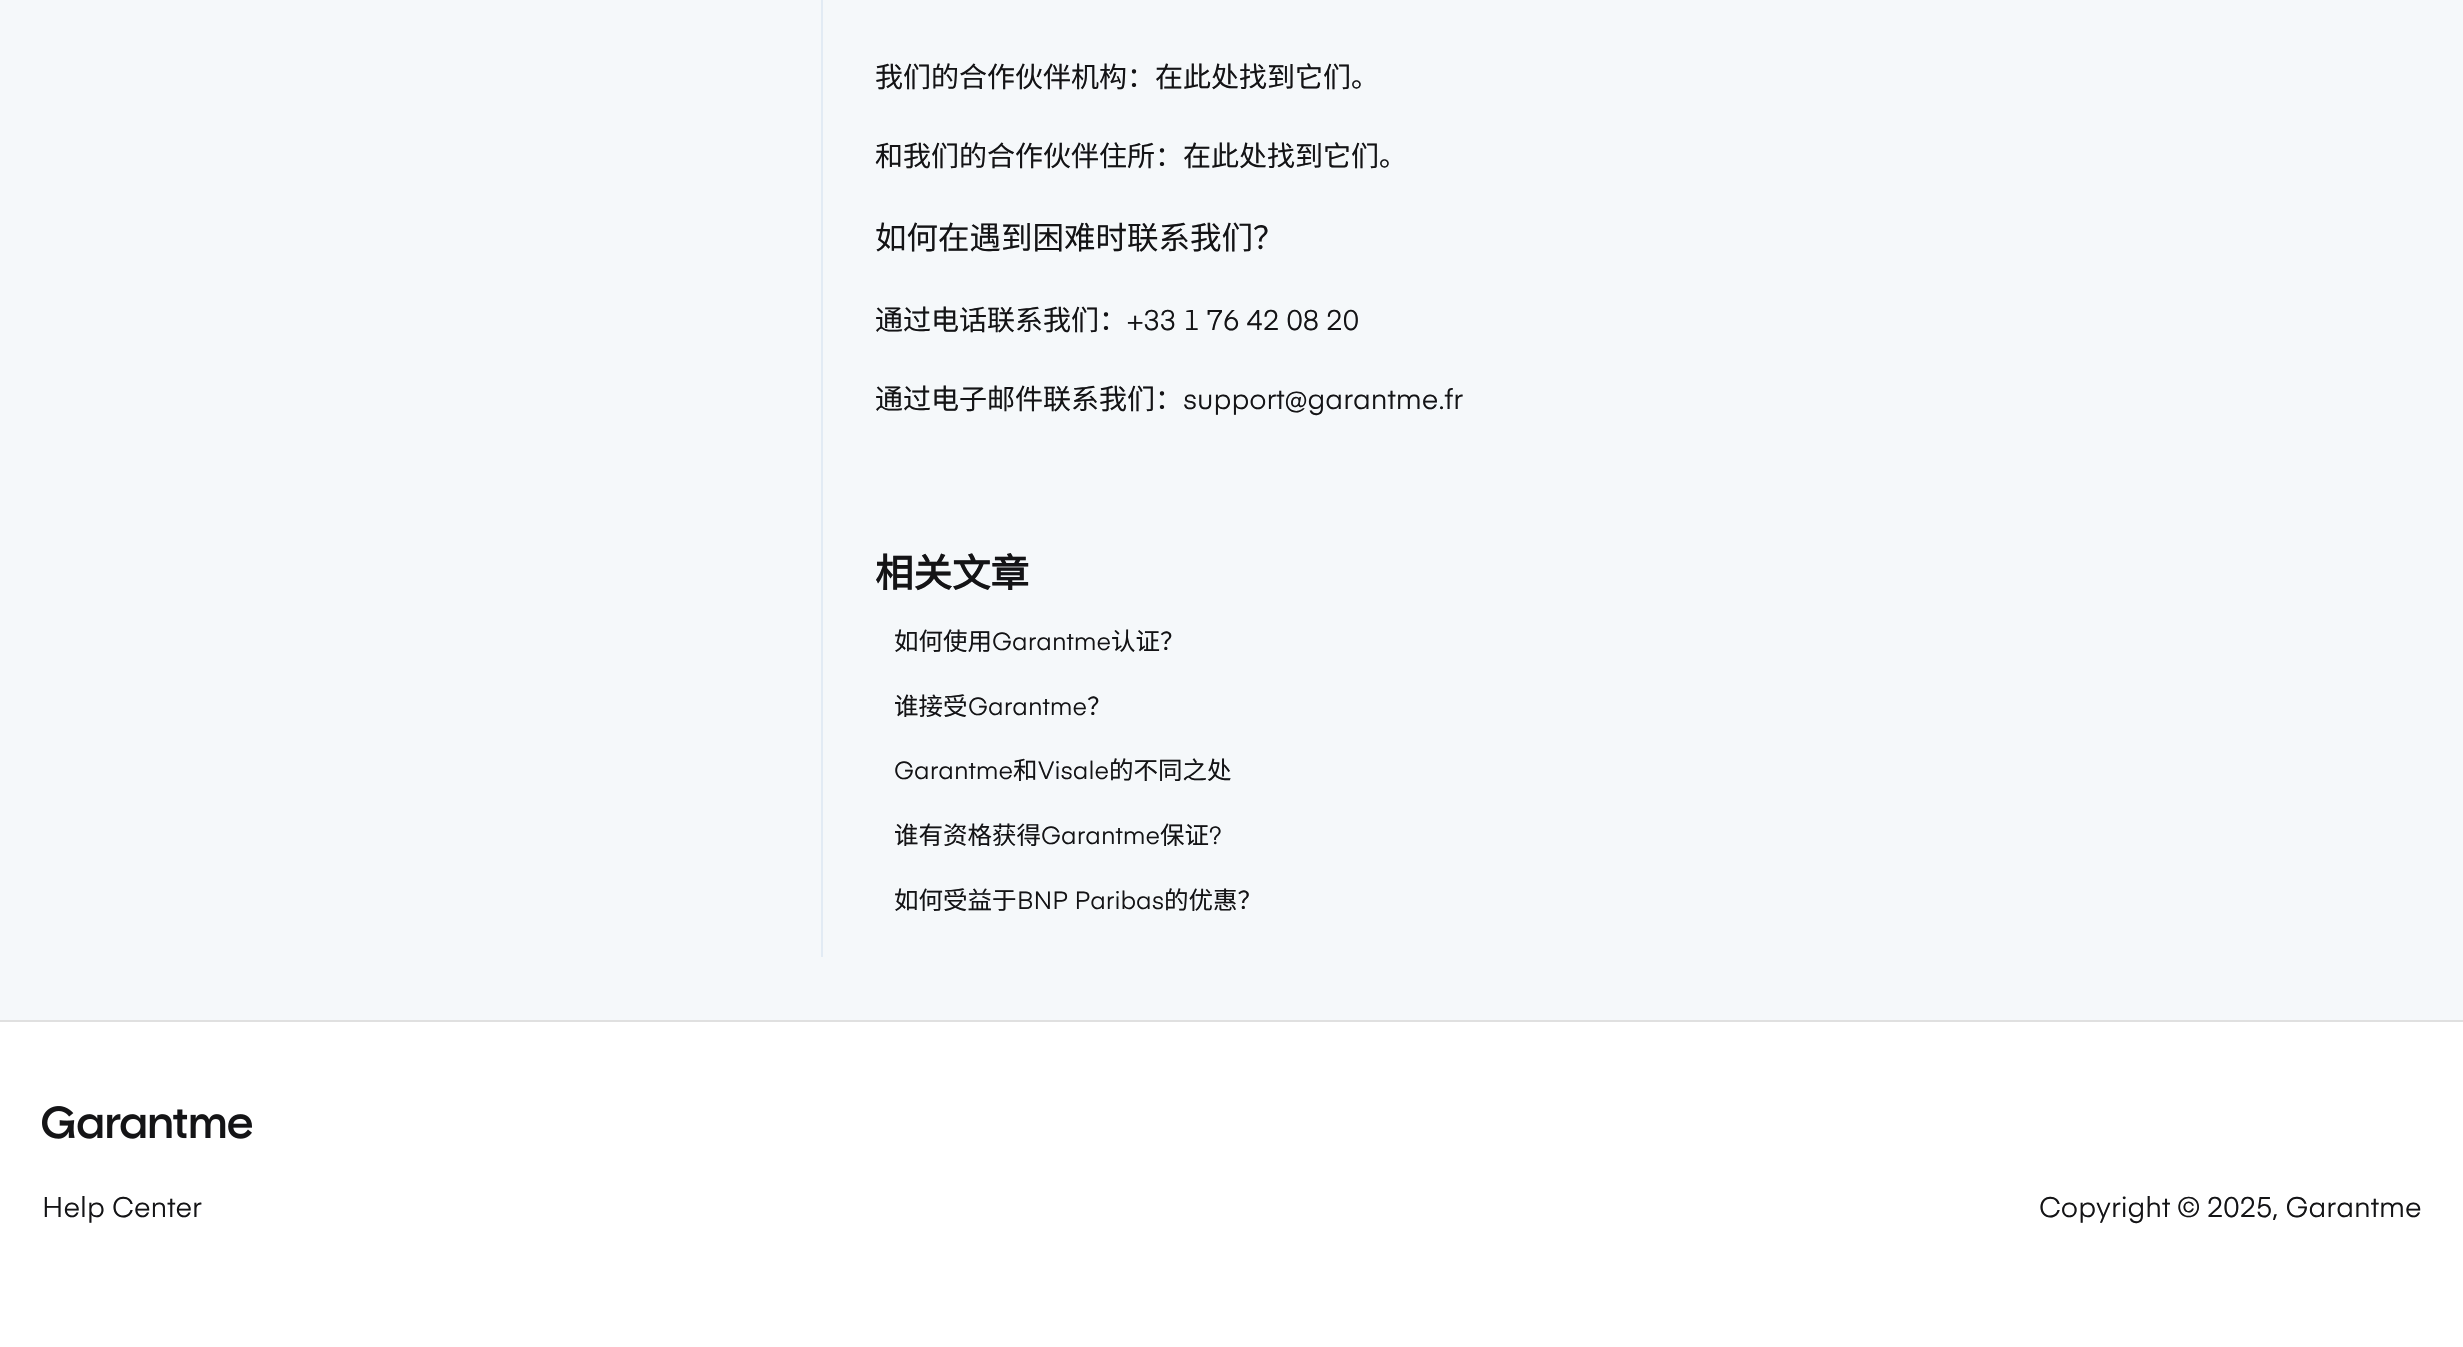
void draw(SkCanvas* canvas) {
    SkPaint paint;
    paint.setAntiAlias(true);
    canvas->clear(0xFFF5F8FA);
    paint.setColor(0xFFE2EBF4);
    canvas->drawRect(SkRect::MakeXYWH(821, 0, 2, 957), paint);
    SkFont font1(fontMgr->matchFamilyStyle("Noto Sans CJK SC", SkFontStyle::Normal()), 28);
    font1.setSubpixel(true);
    paint.setColor(0xFF141416);
    canvas->drawString("我们的合作伙伴机构：在此处找到它们。", 875, 87, font1, paint);
    canvas->drawString("和我们的合作伙伴住所：在此处找到它们。", 875, 166, font1, paint);
    SkFont font2(fontMgr->matchFamilyStyle("Noto Sans CJK SC", SkFontStyle::Normal()), 31.5f);
    font2.setSubpixel(true);
    canvas->drawString("如何在遇到困难时联系我们？", 875, 249, font2, paint);
    canvas->drawString("通过电话联系我们：", 875, 330, font1, paint);
    SkFont font3(fontMgr->matchFamilyStyle("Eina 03", SkFontStyle::Normal()), 28);
    font3.setSubpixel(true);
    canvas->drawString("+33 1 76 42 08 20", 1127, 330, font3, paint);
    canvas->drawString("通过电子邮件联系我们：", 875, 409, font1, paint);
    canvas->drawString("support@garantme.fr", 1183, 409, font3, paint);
    SkFont font4(fontMgr->matchFamilyStyle("Noto Sans CJK SC", SkFontStyle::Bold()), 38.5f);
    font4.setSubpixel(true);
    canvas->drawString("相关文章", 875, 587, font4, paint);
    SkFont font5(fontMgr->matchFamilyStyle("Noto Sans CJK SC", SkFontStyle::Normal()), 24.5f);
    font5.setSubpixel(true);
    canvas->drawString("如何使用", 894, 650, font5, paint);
    SkFont font6(fontMgr->matchFamilyStyle("Eina 03", SkFontStyle::Normal()), 24.5f);
    font6.setSubpixel(true);
    canvas->drawString("Garantme", 992, 650, font6, paint);
    canvas->drawString("认证？", 1111, 650, font5, paint);
    canvas->drawString("谁接受", 894, 715, font5, paint);
    canvas->drawString("Garantme", 968, 715, font6, paint);
    canvas->drawString("？", 1087, 715, font5, paint);
    canvas->drawString("Garantme", 894, 779, font6, paint);
    canvas->drawString("和", 1013, 779, font5, paint);
    canvas->drawString("Visale", 1038, 779, font6, paint);
    canvas->drawString("的不同之处", 1109, 779, font5, paint);
    canvas->drawString("谁有资格获得", 894, 844, font5, paint);
    canvas->drawString("Garantme", 1041, 844, font6, paint);
    canvas->drawString("保证", 1160, 844, font5, paint);
    canvas->drawString("?", 1209, 844, font6, paint);
    canvas->drawString("如何受益于", 894, 909, font5, paint);
    canvas->drawString("BNP Paribas", 1017, 909, font6, paint);
    canvas->drawString("的优惠？", 1164, 909, font5, paint);
    paint.setColor(0xFFFFFFFF);
    canvas->drawRect(SkRect::MakeXYWH(0, 1022, 2463, 325), paint);
    paint.setColor(0xFFE0E0E0);
    canvas->drawRect(SkRect::MakeXYWH(0, 1020, 2463, 2), paint);
    canvas->drawImageRect(SkImages::DeferredFromEncodedData(SkData::MakeFromFileName("img1.png")), SkRect::MakeXYWH(42, 1106, 210, 33), SkSamplingOptions());
    paint.setColor(0xFF141416);
    canvas->drawString("Help Center", 42, 1217, font3, paint);
    canvas->drawString("Copyright © 2025, Garantme", 2039, 1217, font3, paint);
}
